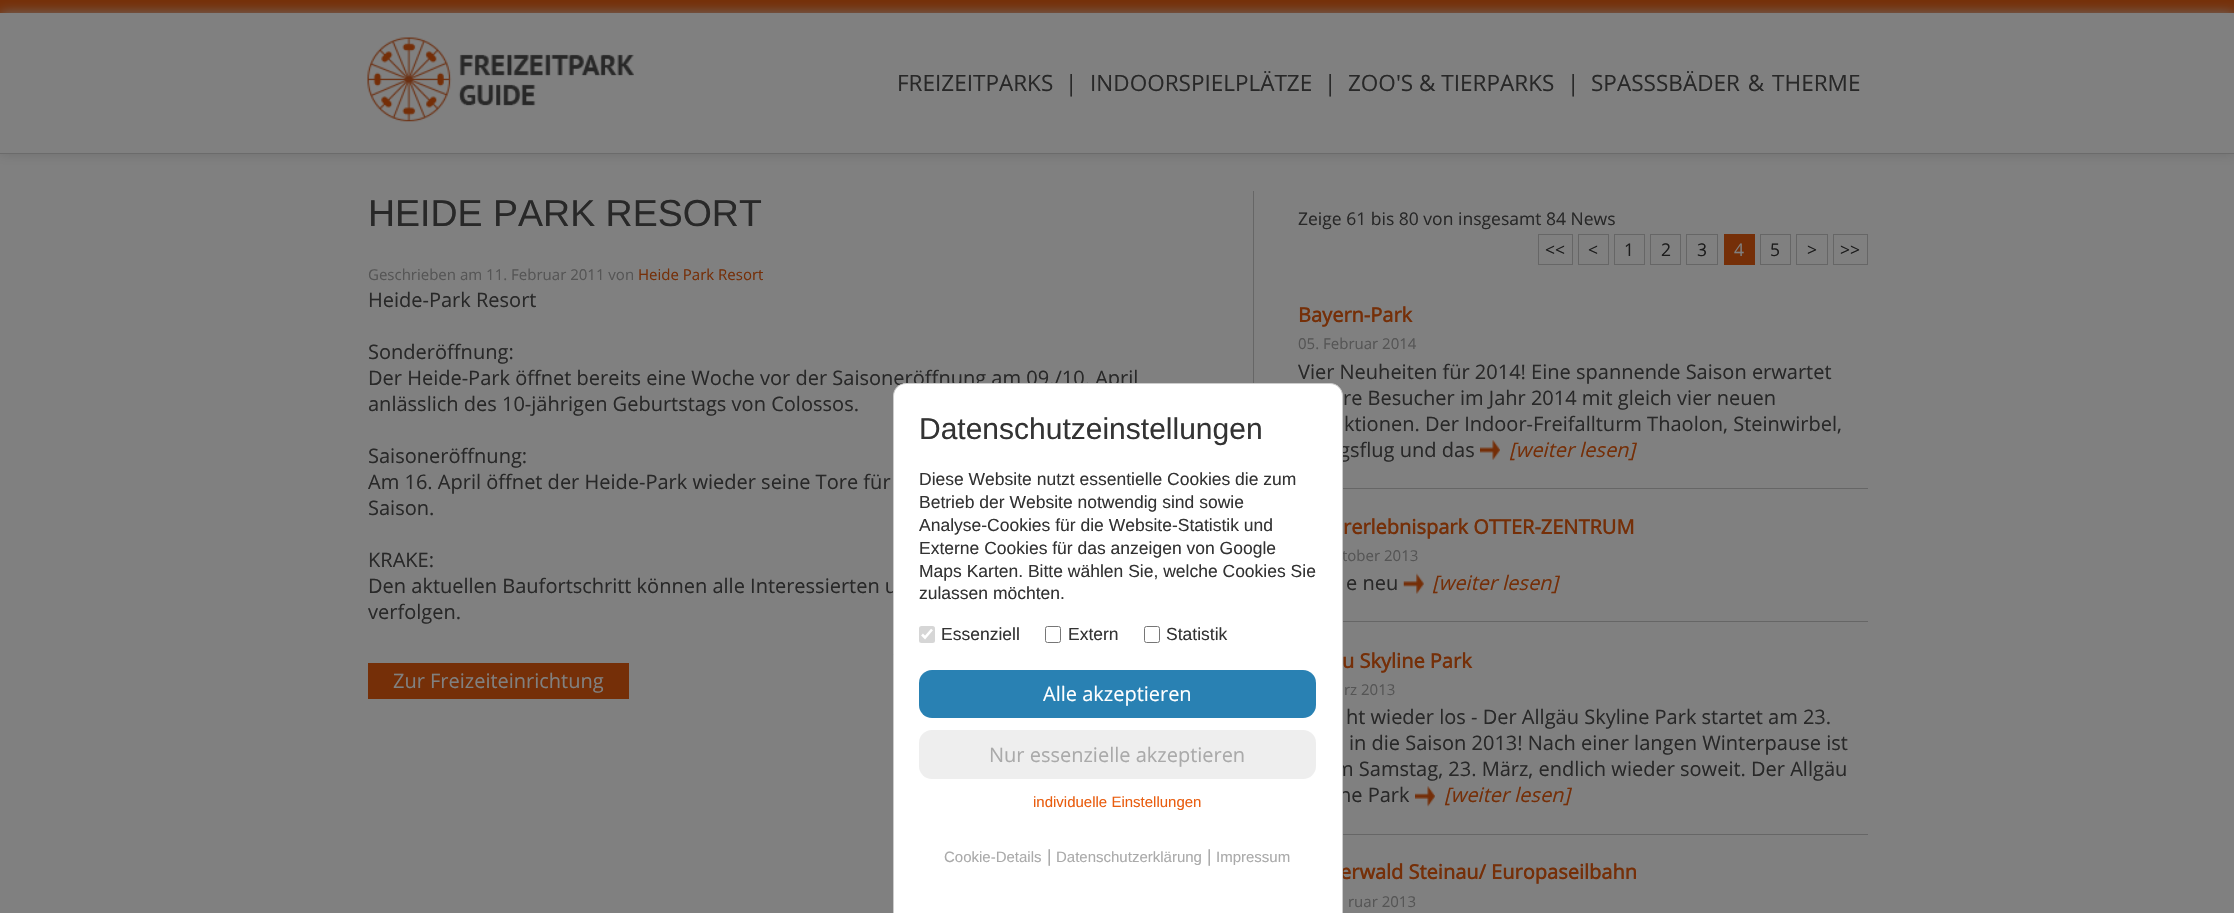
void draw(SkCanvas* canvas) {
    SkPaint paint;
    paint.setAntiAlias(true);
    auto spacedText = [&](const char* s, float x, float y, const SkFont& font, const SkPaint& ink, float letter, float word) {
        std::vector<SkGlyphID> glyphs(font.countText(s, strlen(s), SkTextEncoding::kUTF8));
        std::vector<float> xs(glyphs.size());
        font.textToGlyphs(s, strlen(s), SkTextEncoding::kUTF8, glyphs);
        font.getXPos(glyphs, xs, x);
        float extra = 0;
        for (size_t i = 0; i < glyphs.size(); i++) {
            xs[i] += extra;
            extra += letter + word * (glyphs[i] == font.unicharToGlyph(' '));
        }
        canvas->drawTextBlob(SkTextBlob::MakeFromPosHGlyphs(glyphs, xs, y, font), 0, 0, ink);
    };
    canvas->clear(0xFF752F08);
    paint.setColor(0xFF808080);
    canvas->drawRect(SkRect::MakeXYWH(0, 154, 2234, 759), paint);
    paint.setColor(0xFF6F6F6F);
    paint.setMaskFilter(SkMaskFilter::MakeBlur(kNormal_SkBlurStyle, 6));
    canvas->drawRect(SkRect::MakeXYWH(0, 13, 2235, 141), paint);
    paint.setMaskFilter(nullptr);
    paint.setColor(0xFF808080);
    canvas->drawRect(SkRect::MakeXYWH(0, 13, 2234, 140), paint);
    paint.setColor(0xFF6B6B6B);
    canvas->drawRect(SkRect::MakeXYWH(0, 153, 2234, 1), paint);
    canvas->drawImageRect(SkImages::DeferredFromEncodedData(SkData::MakeFromFileName("img1.png")), SkRect::MakeXYWH(367, 37, 267, 85), SkSamplingOptions());
    SkFont font1(fontMgr->matchFamilyStyle("Open Sans", SkFontStyle::Normal()), 22.5f);
    font1.setSubpixel(true);
    paint.setColor(0xFF282828);
    canvas->drawString("FREIZEITPARKS", 897, 91, font1, paint);
    canvas->drawString("|", 1065, 91, font1, paint);
    canvas->drawString("INDOORSPIELPLÄTZE", 1090, 91, font1, paint);
    canvas->drawString("|", 1324, 91, font1, paint);
    canvas->drawString("ZOO'S & TIERPARKS", 1348, 91, font1, paint);
    canvas->drawString("|", 1567, 91, font1, paint);
    canvas->drawString("SPASS", 1591, 91, font1, paint);
    spacedText("SBÄDER & THERME", 1656, 91, font1, paint, 0, 2);
    SkFont font2(fontMgr->matchFamilyStyle("Liberation Sans", SkFontStyle::Normal()), 37.5f);
    font2.setSubpixel(true);
    canvas->drawString("HEIDE PARK RESORT", 368, 226, font2, paint);
    SkFont font3(fontMgr->matchFamilyStyle("Open Sans", SkFontStyle::Normal()), 15);
    font3.setSubpixel(true);
    paint.setColor(0xFF555555);
    canvas->drawString("Geschrieben am 11. Februar 2011 von", 368, 280, font3, paint);
    paint.setColor(0xFF752F08);
    canvas->drawString("Heide Park Resort", 638, 280, font3, paint);
    SkFont font4(fontMgr->matchFamilyStyle("Open Sans", SkFontStyle::Normal()), 20);
    font4.setSubpixel(true);
    paint.setColor(0xFF282828);
    canvas->drawString("Heide-Park Resort", 368, 307, font4, paint);
    canvas->drawString("Sonderöffnung:", 368, 359, font4, paint);
    canvas->drawString("Der Heide-Park öffnet bereits eine Woche vor der Saisoneröffnung am 09./10. April", 368, 385, font4, paint);
    canvas->drawString("anlässlich des 10-jährigen Geburtstags von Colossos.", 368, 411, font4, paint);
    canvas->drawString("Saisoneröffnung:", 368, 463, font4, paint);
    canvas->drawString("Am 16. April öffnet der Heide-Park wieder seine Tore für", 368, 489, font4, paint);
    canvas->drawString("Saison.", 368, 515, font4, paint);
    canvas->drawString("KRAKE:", 368, 567, font4, paint);
    canvas->drawString("Den aktuellen Baufortschritt können alle Interessierten u", 368, 593, font4, paint);
    canvas->drawString("verfolgen.", 368, 619, font4, paint);
    paint.setColor(0xFF752F08);
    canvas->drawRect(SkRect::MakeXYWH(368, 663, 261, 36), paint);
    paint.setColor(0xFF808080);
    canvas->drawString("Zur Freizeiteinrichtung", 393, 688, font4, paint);
    paint.setColor(0xFF666666);
    canvas->drawRect(SkRect::MakeXYWH(1253, 191, 1, 192), paint);
    SkFont font5(fontMgr->matchFamilyStyle("Open Sans", SkFontStyle::Normal()), 17.5f);
    font5.setSubpixel(true);
    paint.setColor(0xFF282828);
    canvas->drawString("Zeige 61 bis 80 von insgesamt 84 News", 1298, 225, font5, paint);
    paint.setStyle(SkPaint::kStroke_Style);
    paint.setStrokeWidth(1);
    paint.setColor(0xFF666666);
    canvas->drawRect(SkRect::MakeXYWH(1538.5f, 234.5f, 34, 30), paint);
    paint.setStyle(SkPaint::kFill_Style);
    paint.setColor(0xFF1C1C1C);
    canvas->drawString("<<", 1545, 256, font5, paint);
    paint.setStyle(SkPaint::kStroke_Style);
    paint.setColor(0xFF666666);
    canvas->drawRect(SkRect::MakeXYWH(1578.5f, 234.5f, 30, 30), paint);
    paint.setStyle(SkPaint::kFill_Style);
    paint.setColor(0xFF1C1C1C);
    canvas->drawString("<", 1588, 256, font5, paint);
    paint.setStyle(SkPaint::kStroke_Style);
    paint.setColor(0xFF666666);
    canvas->drawRect(SkRect::MakeXYWH(1614.5f, 234.5f, 30, 30), paint);
    paint.setStyle(SkPaint::kFill_Style);
    paint.setColor(0xFF1C1C1C);
    canvas->drawString("1", 1624, 256, font5, paint);
    paint.setStyle(SkPaint::kStroke_Style);
    paint.setColor(0xFF666666);
    canvas->drawRect(SkRect::MakeXYWH(1650.5f, 234.5f, 30, 30), paint);
    paint.setStyle(SkPaint::kFill_Style);
    paint.setColor(0xFF1C1C1C);
    canvas->drawString("2", 1661, 256, font5, paint);
    paint.setStyle(SkPaint::kStroke_Style);
    paint.setColor(0xFF666666);
    canvas->drawRect(SkRect::MakeXYWH(1686.5f, 234.5f, 31, 30), paint);
    paint.setStyle(SkPaint::kFill_Style);
    paint.setColor(0xFF1C1C1C);
    canvas->drawString("3", 1697, 256, font5, paint);
    paint.setColor(0xFF752F08);
    canvas->drawRect(SkRect::MakeXYWH(1724, 234, 31, 31), paint);
    paint.setColor(0xFF808080);
    canvas->drawString("4", 1734, 256, font5, paint);
    paint.setStyle(SkPaint::kStroke_Style);
    paint.setColor(0xFF666666);
    canvas->drawRect(SkRect::MakeXYWH(1760.5f, 234.5f, 30, 30), paint);
    paint.setStyle(SkPaint::kFill_Style);
    paint.setColor(0xFF1C1C1C);
    canvas->drawString("5", 1770, 256, font5, paint);
    paint.setStyle(SkPaint::kStroke_Style);
    paint.setColor(0xFF666666);
    canvas->drawRect(SkRect::MakeXYWH(1796.5f, 234.5f, 31, 30), paint);
    paint.setStyle(SkPaint::kFill_Style);
    paint.setColor(0xFF1C1C1C);
    canvas->drawString(">", 1807, 256, font5, paint);
    paint.setStyle(SkPaint::kStroke_Style);
    paint.setColor(0xFF666666);
    canvas->drawRect(SkRect::MakeXYWH(1833.5f, 234.5f, 34, 30), paint);
    paint.setStyle(SkPaint::kFill_Style);
    paint.setColor(0xFF1C1C1C);
    canvas->drawString(">>", 1840, 256, font5, paint);
    SkFont font6(fontMgr->matchFamilyStyle("Open Sans", SkFontStyle::Bold()), 20);
    font6.setSubpixel(true);
    paint.setColor(0xFF752F08);
    canvas->drawString("Bayern-Park", 1298, 322, font6, paint);
    paint.setColor(0xFF555555);
    canvas->drawString("05. Februar 2014", 1298, 349, font3, paint);
    paint.setColor(0xFF282828);
    canvas->drawString("Vier Neuheiten für 2014! Eine spannende Saison erwartet", 1298, 379, font4, paint);
    canvas->drawString("re Besucher im Jahr 2014 mit gleich vier neuen", 1343, 405, font4, paint);
    canvas->drawString("ktionen. Der Indoor-Freifallturm Thaolon, Steinwirbel,", 1344, 431, font4, paint);
    canvas->drawString("gsflug und das", 1339, 457, font4, paint);
    canvas->drawImageRect(SkImages::DeferredFromEncodedData(SkData::MakeFromFileName("img2.png")), SkRect::MakeXYWH(1480, 440, 20, 20), SkSamplingOptions());
    SkFont font7(fontMgr->matchFamilyStyle("Open Sans", SkFontStyle::Italic()), 20);
    font7.setSubpixel(true);
    paint.setColor(0xFF752F08);
    canvas->drawString("[weiter lesen]", 1509, 457, font7, paint);
    paint.setColor(0xFF666666);
    canvas->drawRect(SkRect::MakeXYWH(1343, 488, 525, 1), paint);
    paint.setColor(0xFF752F08);
    canvas->drawString("rerlebnispark OTTER-ZENTRUM", 1343, 534, font6, paint);
    paint.setColor(0xFF555555);
    canvas->drawString("tober 2013", 1342, 561, font3, paint);
    paint.setColor(0xFF282828);
    canvas->drawString("e neu", 1346, 590, font4, paint);
    canvas->drawImageRect(SkImages::DeferredFromEncodedData(SkData::MakeFromFileName("img3.png")), SkRect::MakeXYWH(1403, 573, 21, 21), SkSamplingOptions());
    paint.setColor(0xFF752F08);
    canvas->drawString("[weiter lesen]", 1432, 590, font7, paint);
    paint.setColor(0xFF666666);
    canvas->drawRect(SkRect::MakeXYWH(1343, 621, 525, 1), paint);
    paint.setColor(0xFF752F08);
    canvas->drawString("u Skyline Park", 1342, 668, font6, paint);
    paint.setColor(0xFF555555);
    canvas->drawString("rz 2013", 1344, 695, font3, paint);
    paint.setColor(0xFF282828);
    canvas->drawString("ht wieder los - Der Allgäu Skyline Park startet am 23.", 1346, 724, font4, paint);
    canvas->drawString("in die Saison 2013! Nach einer langen Winterpause ist", 1349, 750, font4, paint);
    canvas->drawString("m Samstag, 23. März, endlich wieder soweit. Der Allgäu", 1335, 776, font4, paint);
    canvas->drawString("ne Park", 1339, 802, font4, paint);
    canvas->drawImageRect(SkImages::DeferredFromEncodedData(SkData::MakeFromFileName("img4.png")), SkRect::MakeXYWH(1415, 786, 20, 21), SkSamplingOptions());
    paint.setColor(0xFF752F08);
    canvas->drawString("[weiter lesen]", 1444, 802, font7, paint);
    paint.setColor(0xFF666666);
    canvas->drawRect(SkRect::MakeXYWH(1343, 834, 525, 1), paint);
    paint.setColor(0xFF752F08);
    canvas->drawString("erwald Steinau/ Europaseilbahn", 1340, 879, font6, paint);
    paint.setColor(0xFF555555);
    canvas->drawString("ruar 2013", 1348, 907, font3, paint);
    paint.setColor(0xFFFFFFFF);
    canvas->drawPath(SkPathBuilder().moveTo(906, 383.5f).lineTo(1330, 383.5f).cubicTo(1337, 383.5f, 1342.5f, 389, 1342.5f, 396).lineTo(1342.5f, 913.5f).lineTo(893.5f, 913.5f).lineTo(893.5f, 396).cubicTo(893.5f, 389, 899, 383.5f, 906, 383.5f).close().detach(), paint);
    paint.setStyle(SkPaint::kStroke_Style);
    paint.setColor(0xFFCCCCCC);
    canvas->drawPath(SkPathBuilder().moveTo(906, 383.5f).lineTo(1330, 383.5f).cubicTo(1337, 383.5f, 1342.5f, 389, 1342.5f, 396).lineTo(1342.5f, 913.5f).lineTo(893.5f, 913.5f).lineTo(893.5f, 396).cubicTo(893.5f, 389, 899, 383.5f, 906, 383.5f).close().detach(), paint);
    SkFont font8(fontMgr->matchFamilyStyle("Liberation Sans", SkFontStyle::Normal()), 30);
    font8.setSubpixel(true);
    paint.setStyle(SkPaint::kFill_Style);
    paint.setColor(0xFF333333);
    canvas->drawString("Datenschutzeinstellungen", 919, 439, font8, paint);
    SkFont font9(fontMgr->matchFamilyStyle("Liberation Sans", SkFontStyle::Normal()), 17.5f);
    font9.setSubpixel(true);
    canvas->drawString("Diese Website nutzt essentielle Cookies die zum", 919, 485, font9, paint);
    canvas->drawString("Betrieb der Website notwendig sind sowie", 919, 508, font9, paint);
    canvas->drawString("Analyse-Cookies für die Website-Statistik und", 919, 531, font9, paint);
    canvas->drawString("Externe Cookies für das anzeigen von Google", 919, 554, font9, paint);
    canvas->drawString("Maps Karten. Bitte wählen Sie, welche Cookies Sie", 919, 577, font9, paint);
    canvas->drawString("zulassen möchten.", 919, 599, font9, paint);
    paint.setColor(0xFFD6D6D6);
    canvas->drawRoundRect(SkRect::MakeXYWH(919, 626, 16, 17), 2.5f, 2.5f, paint);
    paint.setStyle(SkPaint::kStroke_Style);
    paint.setStrokeWidth(2.6f);
    paint.setColor(0xFFFFFFFF);
    canvas->drawPath(SkPathBuilder().moveTo(922, 634.5f).lineTo(925, 637.5f).lineTo(932, 629.5f).detach(), paint);
    paint.setStyle(SkPaint::kFill_Style);
    paint.setColor(0xFF333333);
    canvas->drawString("Essenziell", 941, 640, font9, paint);
    paint.setStyle(SkPaint::kStroke_Style);
    paint.setStrokeWidth(1);
    paint.setColor(0xFF767676);
    canvas->drawRoundRect(SkRect::MakeXYWH(1045.5f, 626.5f, 15, 16), 2, 2, paint);
    paint.setStyle(SkPaint::kFill_Style);
    paint.setColor(0xFF333333);
    canvas->drawString("Extern", 1068, 640, font9, paint);
    paint.setStyle(SkPaint::kStroke_Style);
    paint.setColor(0xFF767676);
    canvas->drawRoundRect(SkRect::MakeXYWH(1144.5f, 626.5f, 15, 16), 2, 2, paint);
    paint.setStyle(SkPaint::kFill_Style);
    paint.setColor(0xFF333333);
    canvas->drawString("Statistik", 1166, 640, font9, paint);
    paint.setColor(0xFF2981B3);
    canvas->drawRoundRect(SkRect::MakeXYWH(919, 670, 397, 48), 13, 13, paint);
    paint.setColor(0xFFFFFFFF);
    canvas->drawString("Alle akzeptieren", 1043, 701, font4, paint);
    paint.setColor(0xFFEEEEEE);
    canvas->drawRoundRect(SkRect::MakeXYWH(919, 730, 397, 49), 13, 13, paint);
    paint.setColor(0xFFAAAAAA);
    canvas->drawString("Nur essenzielle akzeptieren", 989, 762, font4, paint);
    SkFont font10(fontMgr->matchFamilyStyle("Liberation Sans", SkFontStyle::Normal()), 15);
    font10.setSubpixel(true);
    paint.setColor(0xFFE95D0F);
    canvas->drawString("individuelle Einstellungen", 1033, 807, font10, paint);
    paint.setColor(0xFFAAAAAA);
    canvas->drawString("Cookie-Details", 944, 862, font10, paint);
    canvas->drawString("|", 1047, 862, font9, paint);
    canvas->drawString("Datenschutzerklärung", 1056, 862, font10, paint);
    canvas->drawString("|", 1207, 862, font9, paint);
    canvas->drawString("Impressum", 1216, 862, font10, paint);
}
